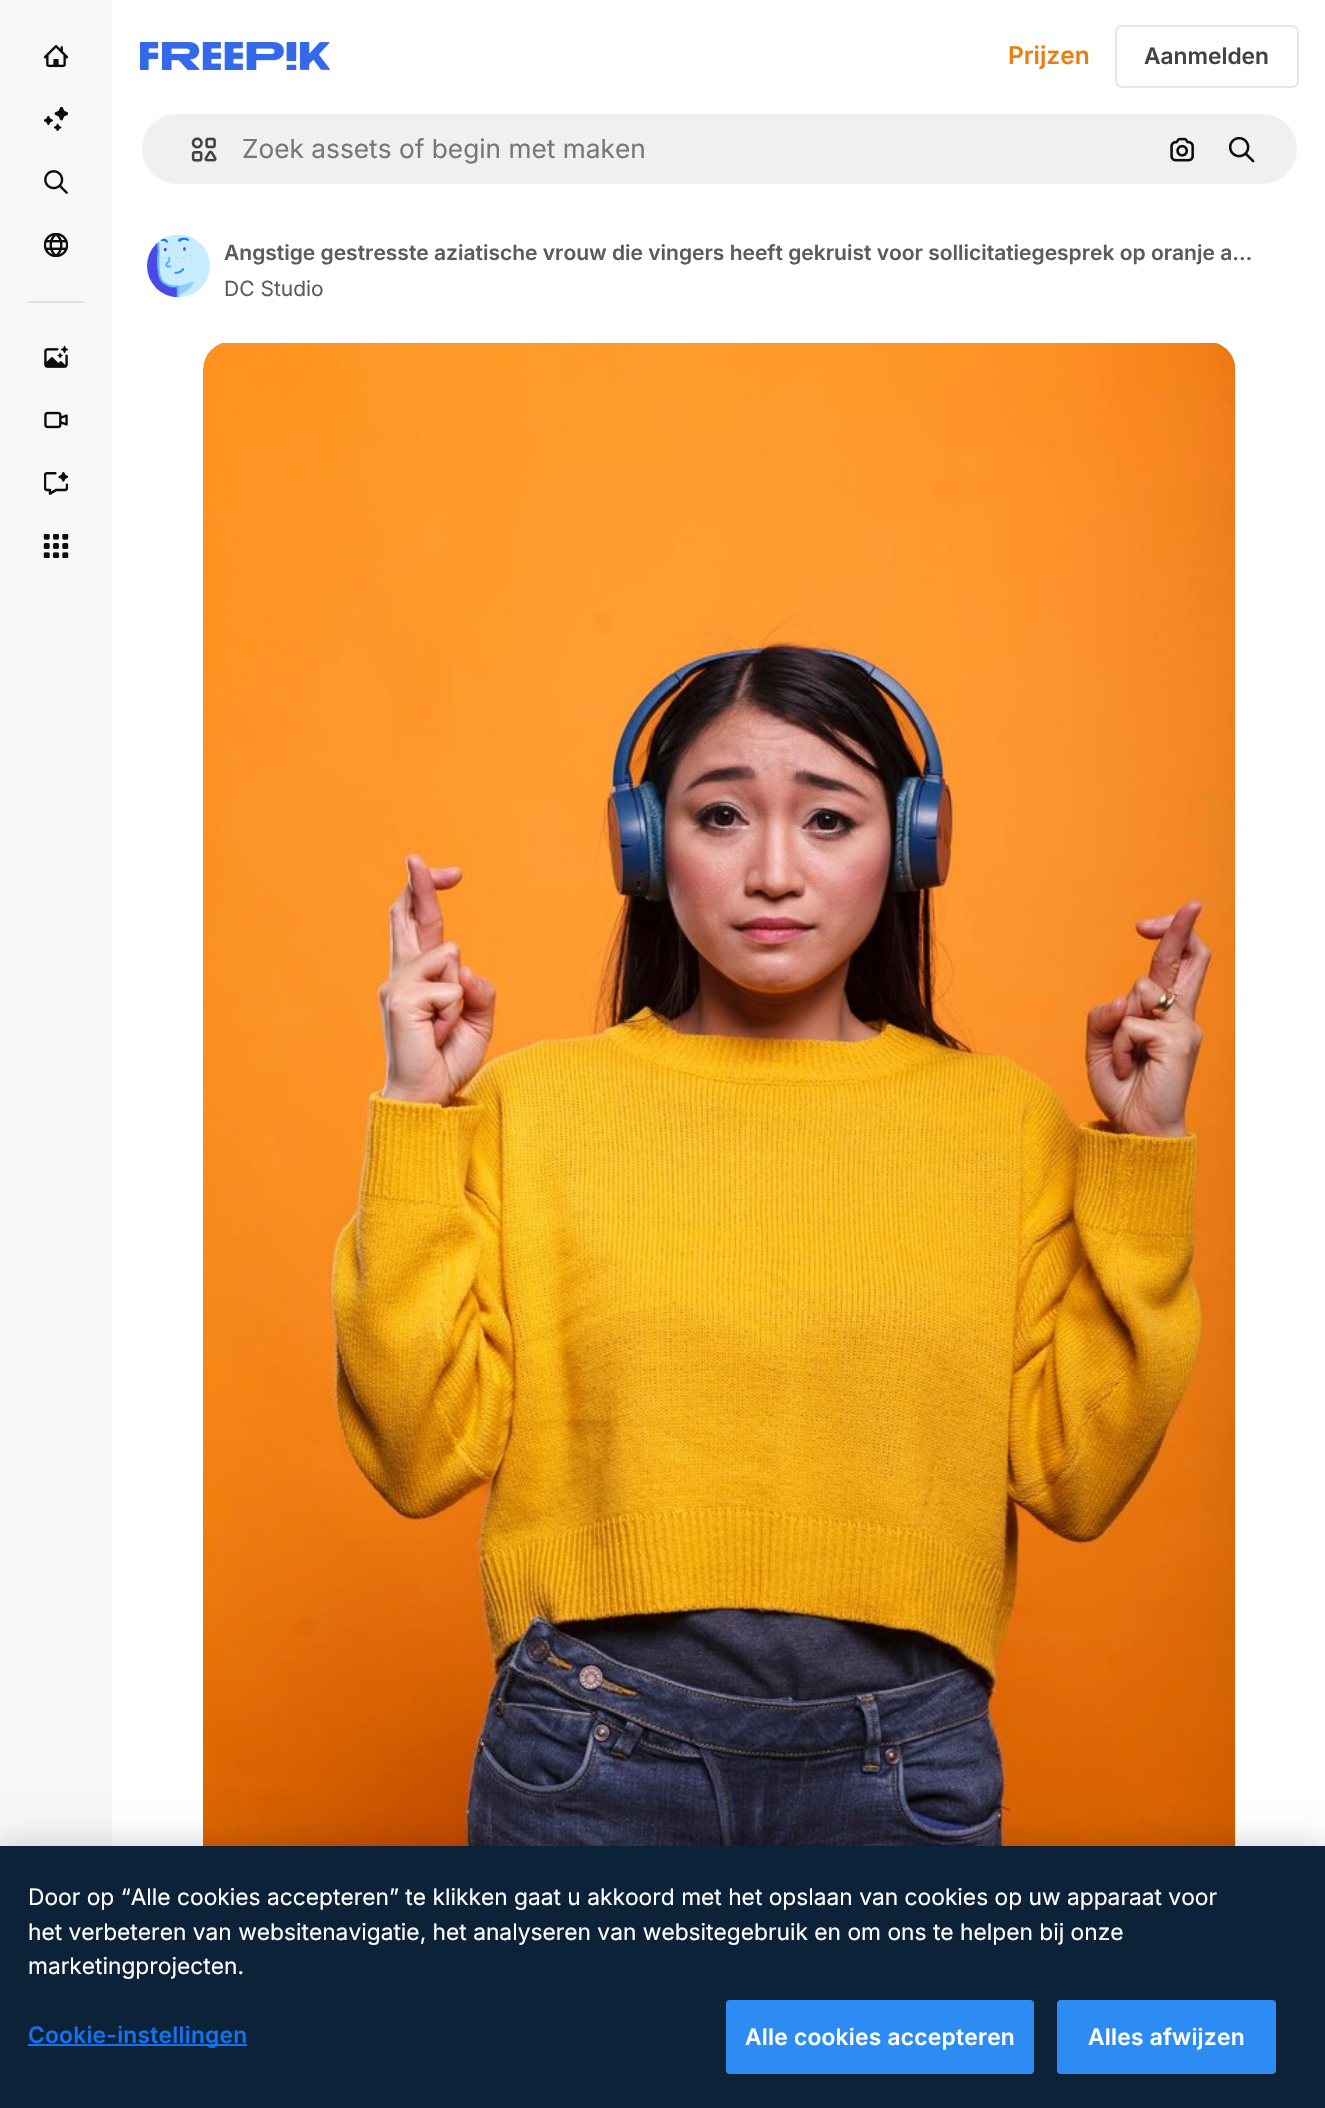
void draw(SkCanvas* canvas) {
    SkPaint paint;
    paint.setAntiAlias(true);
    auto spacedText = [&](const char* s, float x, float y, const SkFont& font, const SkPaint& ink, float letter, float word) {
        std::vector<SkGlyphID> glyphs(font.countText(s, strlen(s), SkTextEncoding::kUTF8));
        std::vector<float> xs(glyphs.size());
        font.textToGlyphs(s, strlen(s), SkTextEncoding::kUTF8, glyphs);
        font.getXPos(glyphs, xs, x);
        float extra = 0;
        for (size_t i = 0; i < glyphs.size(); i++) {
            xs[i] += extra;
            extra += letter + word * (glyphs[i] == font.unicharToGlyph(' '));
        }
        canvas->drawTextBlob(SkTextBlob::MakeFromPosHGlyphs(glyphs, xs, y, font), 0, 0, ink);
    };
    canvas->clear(0xFFFFFFFF);
    paint.setColor(0xFFF7F7F7);
    canvas->drawRect(SkRect::MakeXYWH(0, 0, 112, 1846), paint);
    canvas->drawImageRect(SkImages::DeferredFromEncodedData(SkData::MakeFromFileName("img1.png")), SkRect::MakeXYWH(44, 45, 24, 23), SkSamplingOptions());
    canvas->drawImageRect(SkImages::DeferredFromEncodedData(SkData::MakeFromFileName("img2.png")), SkRect::MakeXYWH(44, 107, 24, 24), SkSamplingOptions());
    canvas->drawImageRect(SkImages::DeferredFromEncodedData(SkData::MakeFromFileName("img3.png")), SkRect::MakeXYWH(44, 170, 24, 24), SkSamplingOptions());
    canvas->drawImageRect(SkImages::DeferredFromEncodedData(SkData::MakeFromFileName("img4.png")), SkRect::MakeXYWH(44, 233, 24, 24), SkSamplingOptions());
    paint.setColor(0xFFE0E0E0);
    canvas->drawRect(SkRect::MakeXYWH(28, 301, 56, 2), paint);
    canvas->drawImageRect(SkImages::DeferredFromEncodedData(SkData::MakeFromFileName("img5.png")), SkRect::MakeXYWH(44, 345, 24, 23), SkSamplingOptions());
    canvas->drawImageRect(SkImages::DeferredFromEncodedData(SkData::MakeFromFileName("img6.png")), SkRect::MakeXYWH(44, 411, 24, 18), SkSamplingOptions());
    canvas->drawImageRect(SkImages::DeferredFromEncodedData(SkData::MakeFromFileName("img7.png")), SkRect::MakeXYWH(44, 472, 24, 23), SkSamplingOptions());
    canvas->drawImageRect(SkImages::DeferredFromEncodedData(SkData::MakeFromFileName("img8.png")), SkRect::MakeXYWH(43, 534, 26, 24), SkSamplingOptions());
    canvas->drawImageRect(SkImages::DeferredFromEncodedData(SkData::MakeFromFileName("img9.png")), SkRect::MakeXYWH(140, 42, 190, 28), SkSamplingOptions());
    SkFont font1(fontMgr->matchFamilyStyle("Inter", SkFontStyle(600, SkFontStyle::kNormal_Width, SkFontStyle::kUpright_Slant)), 24.5f);
    font1.setSubpixel(true);
    paint.setColor(0xFFEA7E11);
    canvas->drawString("Prijzen", 1008, 64, font1, paint);
    paint.setStyle(SkPaint::kStroke_Style);
    paint.setStrokeWidth(2);
    paint.setColor(0xFFE7E7E7);
    canvas->drawRoundRect(SkRect::MakeXYWH(1116, 26, 182, 61), 6, 6, paint);
    SkFont font2(fontMgr->matchFamilyStyle("Inter", SkFontStyle(600, SkFontStyle::kNormal_Width, SkFontStyle::kUpright_Slant)), 22.75f);
    font2.setSubpixel(true);
    paint.setStyle(SkPaint::kFill_Style);
    paint.setColor(0xFF424242);
    canvas->drawString("Aanmelden", 1144, 64, font2, paint);
    paint.setColor(0xFFF0F0F0);
    canvas->drawRoundRect(SkRect::MakeXYWH(141, 113, 1157, 72), 36, 36, paint);
    paint.setStyle(SkPaint::kStroke_Style);
    paint.setColor(0xFFFFFFFF);
    canvas->drawRoundRect(SkRect::MakeXYWH(141, 113, 1157, 72), 36, 36, paint);
    canvas->drawImageRect(SkImages::DeferredFromEncodedData(SkData::MakeFromFileName("img10.png")), SkRect::MakeXYWH(191, 137, 26, 25), SkSamplingOptions());
    SkFont font3(fontMgr->matchFamilyStyle("Inter", SkFontStyle::Normal()), 26.25f);
    font3.setSubpixel(true);
    paint.setStyle(SkPaint::kFill_Style);
    paint.setColor(0xFF777777);
    canvas->drawString("Zoek assets of begin met maken", 242, 158, font3, paint);
    canvas->drawImageRect(SkImages::DeferredFromEncodedData(SkData::MakeFromFileName("img11.png")), SkRect::MakeXYWH(1170, 137, 24, 25), SkSamplingOptions());
    canvas->drawImageRect(SkImages::DeferredFromEncodedData(SkData::MakeFromFileName("img12.png")), SkRect::MakeXYWH(1229, 137, 26, 26), SkSamplingOptions());
    canvas->drawImageRect(SkImages::DeferredFromEncodedData(SkData::MakeFromFileName("img13.png")), SkRect::MakeXYWH(147, 234, 63, 64), SkSamplingOptions());
    SkFont font4(fontMgr->matchFamilyStyle("Inter", SkFontStyle(600, SkFontStyle::kNormal_Width, SkFontStyle::kUpright_Slant)), 21);
    font4.setSubpixel(true);
    paint.setColor(0xFF5C5C5C);
    canvas->drawString("Angstige gestresste aziatische vrouw die vingers heeft gekruist voor sollicitatiegesprek op oranje a…", 224, 260, font4, paint);
    SkFont font5(fontMgr->matchFamilyStyle("Inter", SkFontStyle::Normal()), 21);
    font5.setSubpixel(true);
    canvas->drawString("DC Studio", 224, 296, font5, paint);
    canvas->drawImageRect(SkImages::DeferredFromEncodedData(SkData::MakeFromFileName("img14.png")), SkRect::MakeXYWH(203, 343, 1033, 1503), SkSamplingOptions());
    paint.setColor(0x33000000);
    paint.setMaskFilter(SkMaskFilter::MakeBlur(kNormal_SkBlurStyle, 16));
    canvas->drawRect(SkRect::MakeXYWH(0, 1846, 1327, 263), paint);
    paint.setMaskFilter(nullptr);
    paint.setColor(0xFF0B2239);
    canvas->drawRect(SkRect::MakeXYWH(0, 1846, 1325, 262), paint);
    SkFont font6(fontMgr->matchFamilyStyle("Inter", SkFontStyle::Normal()), 22.75f);
    font6.setSubpixel(true);
    paint.setColor(0xFFFFFFFF);
    canvas->drawString("Door op “Alle cookies accepteren” te klikken gaat u akkoord met het opslaan van cookies op uw apparaat voor", 28, 1905, font6, paint);
    canvas->drawString("het verbeteren van websitenavigatie, het analyseren van websitegebruik en om ons te helpen bij onze", 28, 1940, font6, paint);
    canvas->drawString("marketingprojecten.", 28, 1974, font6, paint);
    paint.setColor(0xFF1273EB);
    canvas->drawRect(SkRect::MakeXYWH(28, 2044, 219, 2), paint);
    spacedText("Cookie-instellingen", 28, 2043, font2, paint, 0.25f, 0);
    paint.setColor(0xFF2C8CF4);
    canvas->drawRoundRect(SkRect::MakeXYWH(727, 2001, 306, 72), 3, 3, paint);
    paint.setStyle(SkPaint::kStroke_Style);
    canvas->drawRoundRect(SkRect::MakeXYWH(727, 2001, 306, 72), 3, 3, paint);
    paint.setStyle(SkPaint::kFill_Style);
    paint.setColor(0xFFFFFFFF);
    spacedText("Alle cookies accepteren", 745, 2045, font2, paint, 0.25f, 0);
    paint.setColor(0xFF2C8CF4);
    canvas->drawRoundRect(SkRect::MakeXYWH(1058, 2001, 217, 72), 3, 3, paint);
    paint.setStyle(SkPaint::kStroke_Style);
    canvas->drawRoundRect(SkRect::MakeXYWH(1058, 2001, 217, 72), 3, 3, paint);
    paint.setStyle(SkPaint::kFill_Style);
    paint.setColor(0xFFFFFFFF);
    spacedText("Alles afwijzen", 1088, 2045, font2, paint, 0.25f, 0);
}
